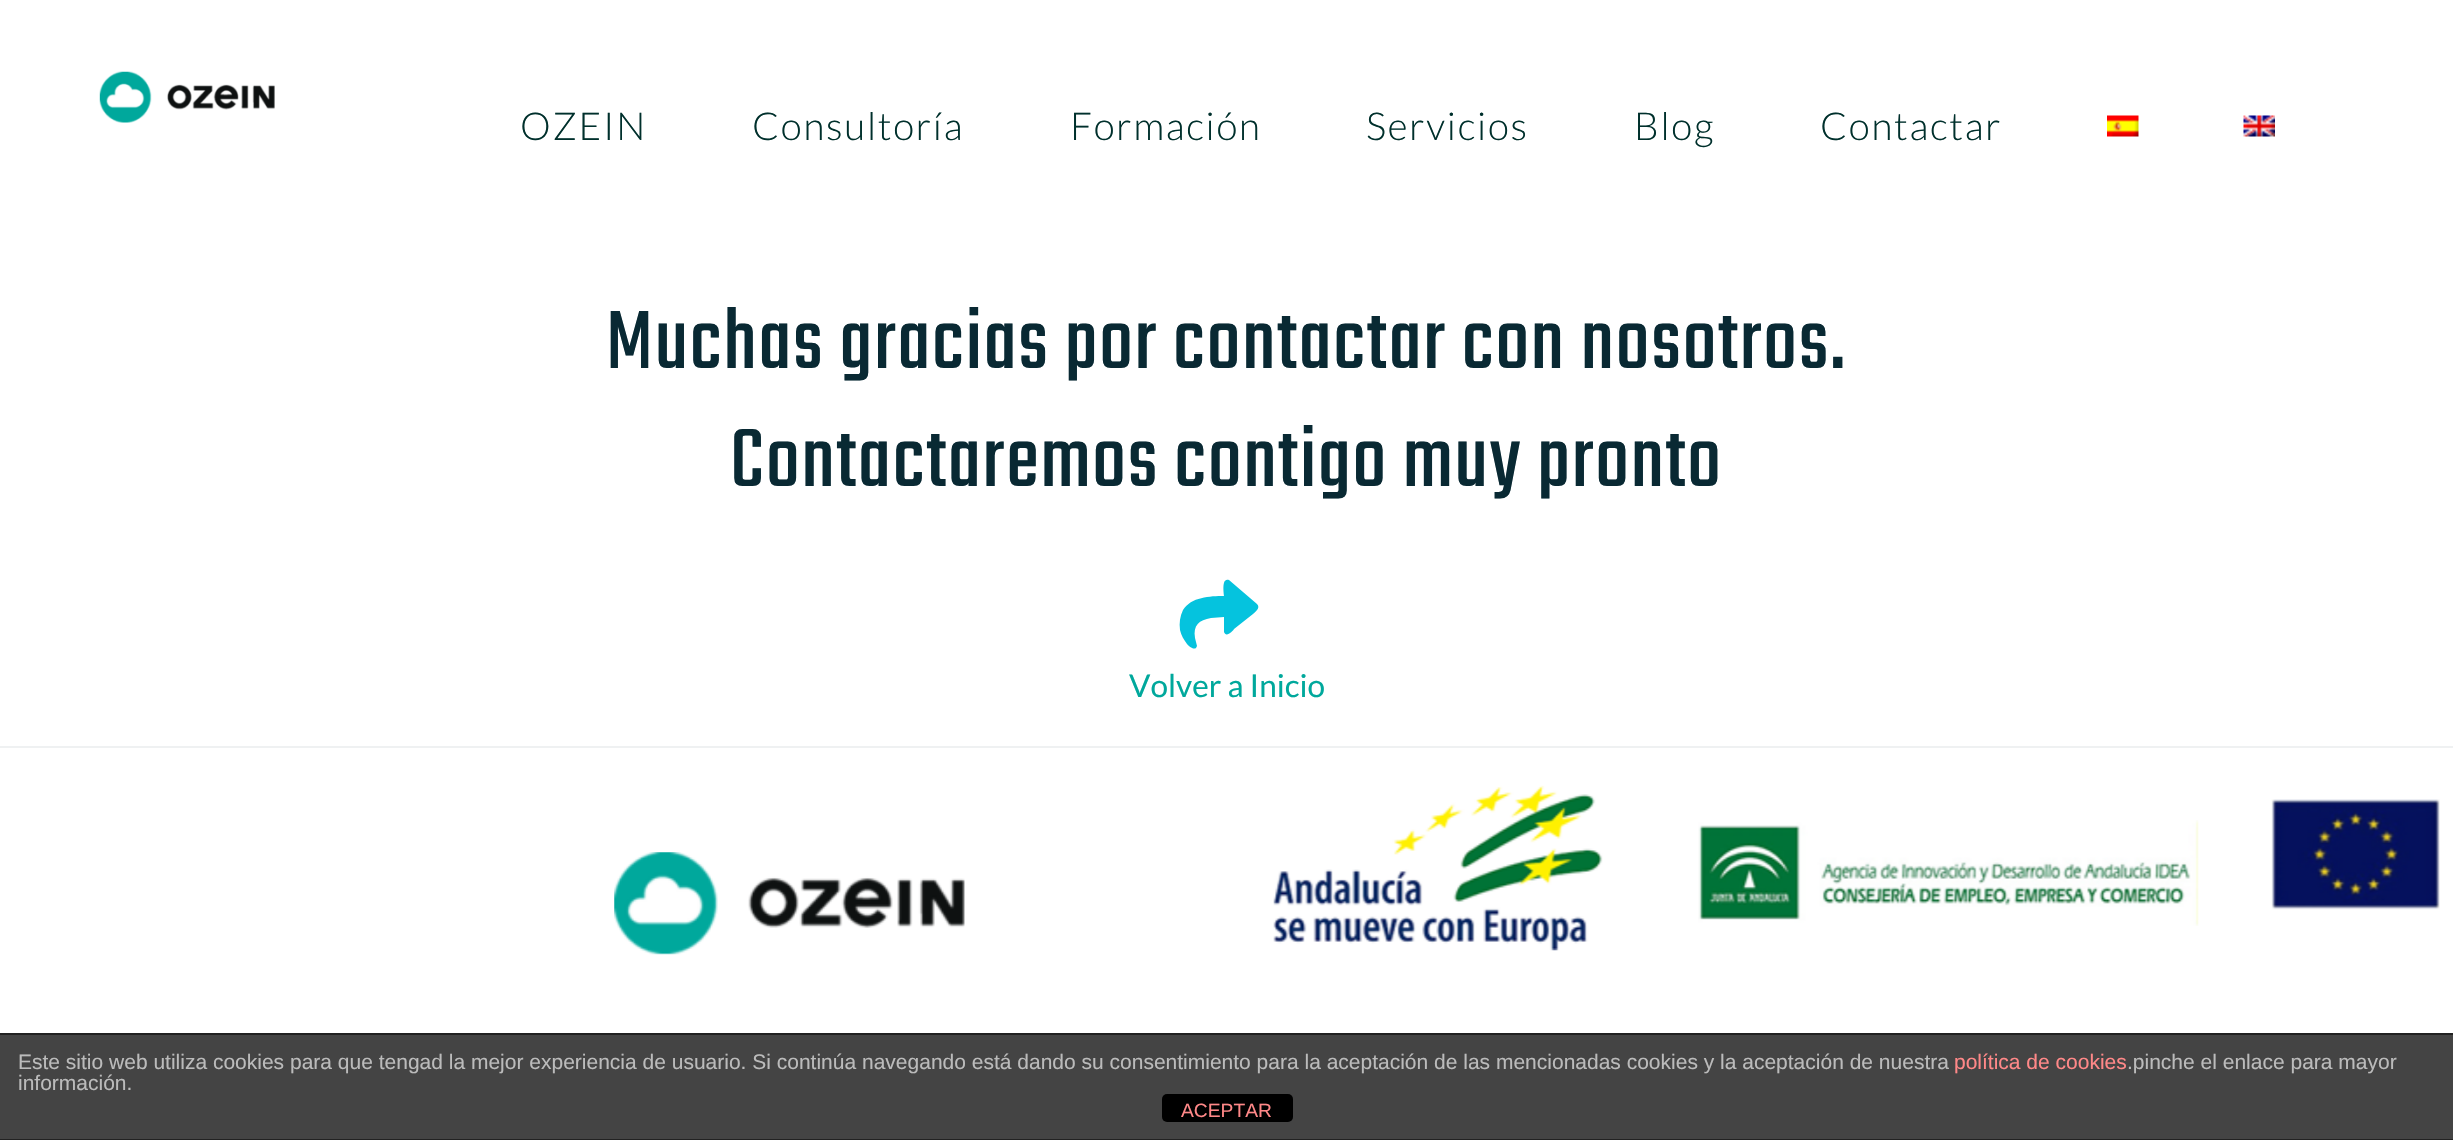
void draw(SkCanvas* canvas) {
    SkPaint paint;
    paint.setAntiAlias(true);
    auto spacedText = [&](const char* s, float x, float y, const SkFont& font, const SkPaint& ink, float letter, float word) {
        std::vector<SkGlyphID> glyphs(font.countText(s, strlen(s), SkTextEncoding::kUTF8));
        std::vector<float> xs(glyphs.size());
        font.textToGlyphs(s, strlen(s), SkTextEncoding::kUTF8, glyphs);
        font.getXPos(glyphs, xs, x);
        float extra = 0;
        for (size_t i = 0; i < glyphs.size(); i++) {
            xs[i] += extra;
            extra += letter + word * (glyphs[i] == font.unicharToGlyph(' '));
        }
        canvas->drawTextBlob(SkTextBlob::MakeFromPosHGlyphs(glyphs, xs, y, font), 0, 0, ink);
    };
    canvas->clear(0xFFFFFFFF);
    canvas->drawImageRect(SkImages::DeferredFromEncodedData(SkData::MakeFromFileName("img1.png")), SkRect::MakeXYWH(99, 71, 176, 52), SkSamplingOptions());
    SkFont font1(fontMgr->matchFamilyStyle("Lato", SkFontStyle(300, SkFontStyle::kNormal_Width, SkFontStyle::kUpright_Slant)), 38.5f);
    font1.setSubpixel(true);
    paint.setColor(0xFF00302C);
    spacedText("OZEIN", 520, 140, font1, paint, 1.75f, 0);
    spacedText("Consultoría", 752, 140, font1, paint, 1.75f, 0);
    spacedText("Formación", 1070, 140, font1, paint, 1.75f, 0);
    spacedText("Servicios", 1366, 140, font1, paint, 1.75f, 0);
    spacedText("Blog", 1634, 140, font1, paint, 1.75f, 0);
    spacedText("Contactar", 1820, 140, font1, paint, 1.75f, 0);
    canvas->drawImageRect(SkImages::DeferredFromEncodedData(SkData::MakeFromFileName("img2.png")), SkRect::MakeXYWH(2107, 115, 32, 22), SkSamplingOptions());
    canvas->drawImageRect(SkImages::DeferredFromEncodedData(SkData::MakeFromFileName("img3.png")), SkRect::MakeXYWH(2243, 115, 32, 22), SkSamplingOptions());
    SkFont font2(fontMgr->matchFamilyStyle("Teko", SkFontStyle::Normal()), 91);
    font2.setSubpixel(true);
    paint.setColor(0xFF092933);
    spacedText("Muchas gracias por contactar con nosotros.", 606, 368, font2, paint, 1.75f, 0);
    spacedText("Contactaremos contigo muy pronto", 730, 486, font2, paint, 1.75f, 0);
    paint.setColor(0xFF05C3DE);
    canvas->drawPath(SkPathBuilder().moveTo(1257, 604).cubicTo(1261, 608, 1255, 612, 1253, 614).lineTo(1234, 629).cubicTo(1233, 631, 1226, 638, 1224, 632).lineTo(1224, 617).lineTo(1211, 618).cubicTo(1199, 620, 1193, 625, 1195, 638).lineTo(1197, 646).lineTo(1196, 648).cubicTo(1193, 650, 1189, 646, 1187, 644).cubicTo(1184, 640, 1181, 635, 1180, 630).cubicTo(1179, 623, 1180, 616, 1183, 610).cubicTo(1191, 597, 1210, 596, 1224, 596).cubicTo(1224, 594, 1221, 577, 1229, 580).close().detach(), paint);
    SkFont font3(fontMgr->matchFamilyStyle("Lato", SkFontStyle::Normal()), 31.5f);
    font3.setSubpixel(true);
    paint.setColor(0xFF00A89C);
    canvas->drawString("Volver a Inicio", 1129, 697, font3, paint);
    paint.setColor(0xFFEFF1F2);
    canvas->drawRect(SkRect::MakeXYWH(0, 746, 2453, 2), paint);
    canvas->drawImageRect(SkImages::DeferredFromEncodedData(SkData::MakeFromFileName("img4.png")), SkRect::MakeXYWH(614, 852, 351, 103), SkSamplingOptions());
    canvas->drawImageRect(SkImages::DeferredFromEncodedData(SkData::MakeFromFileName("img5.png")), SkRect::MakeXYWH(1273, 785, 330, 166), SkSamplingOptions());
    canvas->drawImageRect(SkImages::DeferredFromEncodedData(SkData::MakeFromFileName("img6.png")), SkRect::MakeXYWH(1698, 820, 501, 106), SkSamplingOptions());
    canvas->drawImageRect(SkImages::DeferredFromEncodedData(SkData::MakeFromFileName("img7.png")), SkRect::MakeXYWH(2271, 799, 169, 111), SkSamplingOptions());
    paint.setColor(0xFF444444);
    canvas->drawRect(SkRect::MakeXYWH(0, 1035, 2453, 104), paint);
    paint.setColor(0xFF222222);
    canvas->drawRect(SkRect::MakeXYWH(0, 1033, 2453, 2), paint);
    canvas->drawRect(SkRect::MakeXYWH(0, 1139, 2453, 1), paint);
    SkFont font4(fontMgr->matchFamilyStyle("Liberation Sans", SkFontStyle::Normal()), 21);
    font4.setSubpixel(true);
    paint.setColor(0xFFBBBBBB);
    canvas->drawString("Este sitio web utiliza cookies para que tengad la mejor experiencia de usuario. Si continúa navegando está dando su consentimiento para la aceptación de las mencionadas cookies y la aceptación de nuestra", 18, 1069, font4, paint);
    paint.setColor(0xFFFF8888);
    canvas->drawString("política de cookies", 1954, 1069, font4, paint);
    paint.setColor(0xFFBBBBBB);
    canvas->drawString(".pinche el enlace para mayor", 2127, 1069, font4, paint);
    canvas->drawString("información.", 18, 1090, font4, paint);
    paint.setColor(0xFF000000);
    canvas->drawRoundRect(SkRect::MakeXYWH(1162, 1094, 131, 28), 5, 5, paint);
    SkFont font5(fontMgr->matchFamilyStyle("Liberation Sans", SkFontStyle::Normal()), 19.25f);
    font5.setSubpixel(true);
    paint.setColor(0xFFFF8888);
    canvas->drawString("ACEPTAR", 1181, 1117, font5, paint);
}
